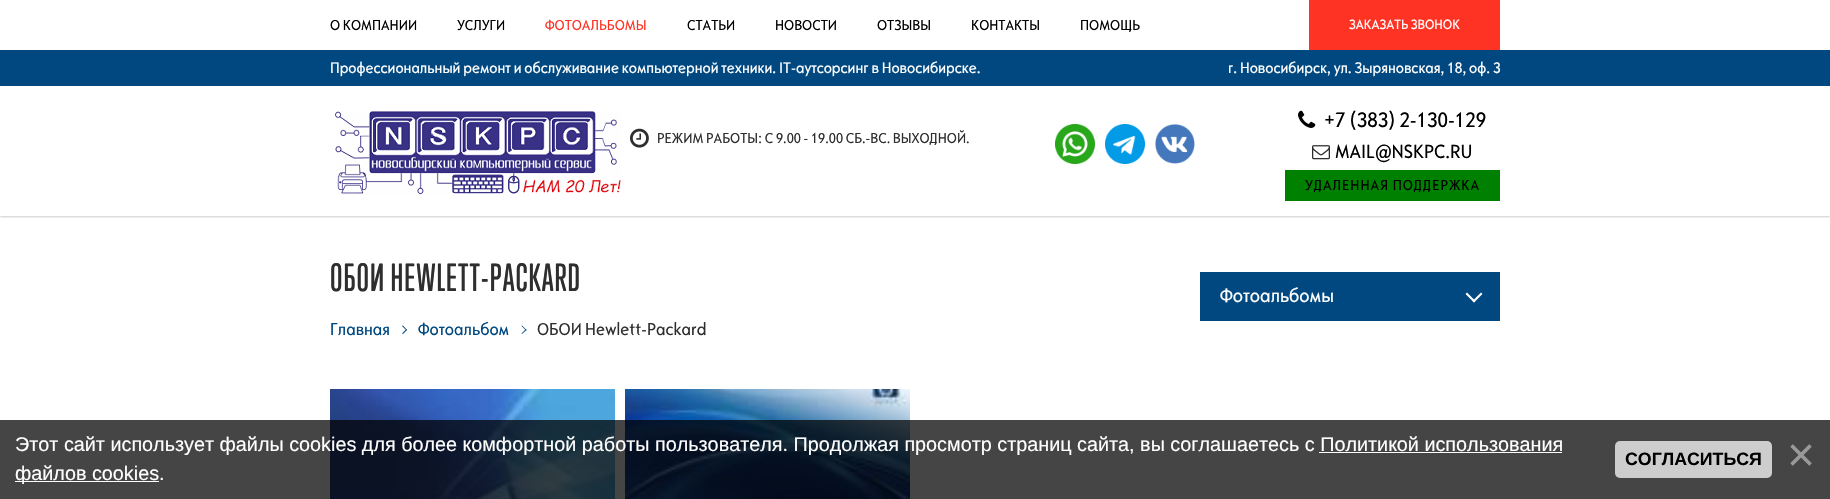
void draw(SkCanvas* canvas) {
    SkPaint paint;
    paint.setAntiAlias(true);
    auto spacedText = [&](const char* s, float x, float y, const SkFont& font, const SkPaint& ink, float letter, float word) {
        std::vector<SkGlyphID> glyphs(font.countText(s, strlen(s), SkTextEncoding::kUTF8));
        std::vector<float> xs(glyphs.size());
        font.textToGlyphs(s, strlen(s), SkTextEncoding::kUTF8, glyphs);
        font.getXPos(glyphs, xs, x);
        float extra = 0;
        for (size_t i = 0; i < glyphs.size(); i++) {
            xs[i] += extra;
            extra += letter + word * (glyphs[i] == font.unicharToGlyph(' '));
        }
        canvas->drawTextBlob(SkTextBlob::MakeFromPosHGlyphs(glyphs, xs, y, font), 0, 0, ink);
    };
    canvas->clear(0xFFFFFFFF);
    SkFont font1(fontMgr->matchFamilyStyle("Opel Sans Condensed", SkFontStyle::Normal()), 15);
    font1.setSubpixel(true);
    paint.setColor(0xFF000000);
    canvas->drawString("О КОМПАНИИ", 330, 30, font1, paint);
    canvas->drawString("УСЛУГИ", 457, 30, font1, paint);
    paint.setColor(0xFFFF3324);
    canvas->drawString("ФОТОАЛЬБОМЫ", 545, 30, font1, paint);
    paint.setColor(0xFF000000);
    canvas->drawString("СТАТЬИ", 687, 30, font1, paint);
    canvas->drawString("НОВОСТИ", 775, 30, font1, paint);
    canvas->drawString("ОТЗЫВЫ", 877, 30, font1, paint);
    canvas->drawString("КОНТАКТЫ", 971, 30, font1, paint);
    canvas->drawString("ПОМОЩЬ", 1080, 30, font1, paint);
    paint.setColor(0xFFFF3324);
    canvas->drawRect(SkRect::MakeXYWH(1309, 0, 191, 50), paint);
    SkFont font2(fontMgr->matchFamilyStyle("Opel Sans Condensed", SkFontStyle::Normal()), 14);
    font2.setSubpixel(true);
    paint.setColor(0xFFFFFFFF);
    canvas->drawString("ЗАКАЗАТЬ ЗВОНОК", 1349, 29, font2, paint);
    paint.setColor(0xFF00487F);
    canvas->drawRect(SkRect::MakeXYWH(0, 50, 1830, 36), paint);
    SkFont font3(fontMgr->matchFamilyStyle("Opel Sans Condensed", SkFontStyle::Normal()), 16);
    font3.setSubpixel(true);
    paint.setColor(0xFFFFFFFF);
    canvas->drawString("Профессиональный ремонт и обслуживание компьютерной техники. IT-аутсорсинг в Новосибирске.", 330, 73, font3, paint);
    canvas->drawString("г. Новосибирск, ул. Зыряновская, 18, оф. 3", 1228, 73, font3, paint);
    canvas->save();
    canvas->clipRect(SkRect::MakeXYWH(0, 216, 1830, 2));
    paint.setColor(0x33000000);
    paint.setMaskFilter(SkMaskFilter::MakeBlur(kNormal_SkBlurStyle, 1));
    canvas->drawRect(SkRect::MakeXYWH(0, 87, 1830, 130), paint);
    paint.setMaskFilter(nullptr);
    canvas->restore();
    canvas->drawImageRect(SkImages::DeferredFromEncodedData(SkData::MakeFromFileName("img1.png")), SkRect::MakeXYWH(335, 111, 286, 84), SkSamplingOptions());
    canvas->drawImageRect(SkImages::DeferredFromEncodedData(SkData::MakeFromFileName("img2.png")), SkRect::MakeXYWH(630, 128, 19, 20), SkSamplingOptions());
    paint.setColor(0xFF2E2E2E);
    canvas->drawString("РЕЖИМ РАБОТЫ: С 9.00 - 19.00 СБ.-ВС. ВЫХОДНОЙ.", 657, 143, font1, paint);
    canvas->drawImageRect(SkImages::DeferredFromEncodedData(SkData::MakeFromFileName("img3.png")), SkRect::MakeXYWH(1055, 124, 40, 40), SkSamplingOptions());
    canvas->drawImageRect(SkImages::DeferredFromEncodedData(SkData::MakeFromFileName("img4.png")), SkRect::MakeXYWH(1105, 124, 40, 40), SkSamplingOptions());
    canvas->drawImageRect(SkImages::DeferredFromEncodedData(SkData::MakeFromFileName("img5.png")), SkRect::MakeXYWH(1155, 124, 40, 40), SkSamplingOptions());
    canvas->drawImageRect(SkImages::DeferredFromEncodedData(SkData::MakeFromFileName("img6.png")), SkRect::MakeXYWH(1298, 110, 18, 18), SkSamplingOptions());
    SkFont font4(fontMgr->matchFamilyStyle("Opel Sans Condensed", SkFontStyle::Normal()), 22);
    font4.setSubpixel(true);
    paint.setColor(0xFF000000);
    canvas->drawString("+7 (383) 2-130-129", 1324, 127, font4, paint);
    canvas->drawImageRect(SkImages::DeferredFromEncodedData(SkData::MakeFromFileName("img7.png")), SkRect::MakeXYWH(1312, 145, 18, 15), SkSamplingOptions());
    SkFont font5(fontMgr->matchFamilyStyle("Opel Sans Condensed", SkFontStyle::Normal()), 20);
    font5.setSubpixel(true);
    canvas->drawString("MAIL@NSKPC.RU", 1335, 158, font5, paint);
    paint.setColor(0xFF008000);
    canvas->drawRect(SkRect::MakeXYWH(1285, 170, 215, 31), paint);
    paint.setColor(0xFF000000);
    spacedText("УДАЛЕННАЯ ПОДДЕРЖКА", 1305, 190, font1, paint, 1, 0);
    SkFont font6(fontMgr->matchFamilyStyle("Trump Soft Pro", SkFontStyle(500, SkFontStyle::kNormal_Width, SkFontStyle::kUpright_Slant)), 36);
    font6.setSubpixel(true);
    paint.setColor(0xFF2E2E2E);
    spacedText("ОБОИ HEWLETT-PACKARD", 330, 291, font6, paint, 1, 0);
    paint.setColor(0xFF00487F);
    canvas->drawRect(SkRect::MakeXYWH(1200, 272, 300, 49), paint);
    paint.setColor(0xFFFFFFFF);
    canvas->drawString("Фотоальбомы", 1220, 302, font5, paint);
    canvas->drawPath(SkPathBuilder().moveTo(1481, 292.5f).lineTo(1482.5f, 294).lineTo(1474, 302.5f).lineTo(1472.5f, 301).close().detach(), paint);
    canvas->drawPath(SkPathBuilder().moveTo(1467, 292.5f).lineTo(1475.5f, 301).lineTo(1474, 302.5f).lineTo(1465.5f, 294).close().detach(), paint);
    SkFont font7(fontMgr->matchFamilyStyle("Opel Sans Condensed", SkFontStyle::Normal()), 18);
    font7.setSubpixel(true);
    paint.setColor(0xFF00487F);
    canvas->drawString("Главная", 330, 335, font7, paint);
    canvas->drawPath(SkPathBuilder().moveTo(403, 325.5f).lineTo(407, 330).lineTo(406.5f, 330.5f).lineTo(402, 326).close().detach(), paint);
    canvas->drawPath(SkPathBuilder().moveTo(406.5f, 329).lineTo(407, 330).lineTo(403, 334).lineTo(402, 333.5f).close().detach(), paint);
    canvas->drawString("Фотоальбом", 418, 335, font7, paint);
    canvas->drawPath(SkPathBuilder().moveTo(522, 325.5f).lineTo(526.5f, 330).lineTo(526, 330.5f).lineTo(521.5f, 326).close().detach(), paint);
    canvas->drawPath(SkPathBuilder().moveTo(526, 329).lineTo(526.5f, 330).lineTo(522, 334).lineTo(521.5f, 333.5f).close().detach(), paint);
    paint.setColor(0xFF2E2E2E);
    canvas->drawString("ОБОИ Hewlett-Packard", 537, 335, font7, paint);
    canvas->drawImageRect(SkImages::DeferredFromEncodedData(SkData::MakeFromFileName("img8.png")), SkRect::MakeXYWH(330, 389, 285, 110), SkSamplingOptions());
    canvas->drawImageRect(SkImages::DeferredFromEncodedData(SkData::MakeFromFileName("img9.png")), SkRect::MakeXYWH(625, 389, 285, 110), SkSamplingOptions());
    paint.setColor(0xBA000000);
    canvas->drawRect(SkRect::MakeXYWH(0, 420, 1830, 79), paint);
    SkFont font8(fontMgr->matchFamilyStyle("Liberation Sans", SkFontStyle::Normal()), 19.8f);
    font8.setSubpixel(true);
    paint.setColor(0xFFFFFFFF);
    canvas->drawString("Этот сайт использует файлы cookies для более комфортной работы пользователя. Продолжая просмотр страниц сайта, вы соглашаетесь с Политикой использования", 15, 451, font8, paint);
    canvas->drawRect(SkRect::MakeXYWH(15, 481, 144, 1), paint);
    canvas->drawString("файлов cookies.", 15, 480, font8, paint);
    canvas->drawRect(SkRect::MakeXYWH(1319, 452, 243, 1), paint);
    paint.setColor(0xFFCDCDCD);
    canvas->drawRoundRect(SkRect::MakeXYWH(1615, 441, 157, 37), 5, 5, paint);
    SkFont font9(fontMgr->matchFamilyStyle("Liberation Sans", SkFontStyle::Bold()), 17.75f);
    font9.setSubpixel(true);
    paint.setColor(0xFF000000);
    canvas->drawString("СОГЛАСИТЬСЯ", 1625, 465, font9, paint);
    SkFont font10(fontMgr->matchFamilyStyle("Liberation Sans", SkFontStyle::Normal()), 48);
    font10.setSubpixel(true);
    paint.setColor(0xFF999999);
    canvas->drawString("×", 1787, 471, font10, paint);
}
